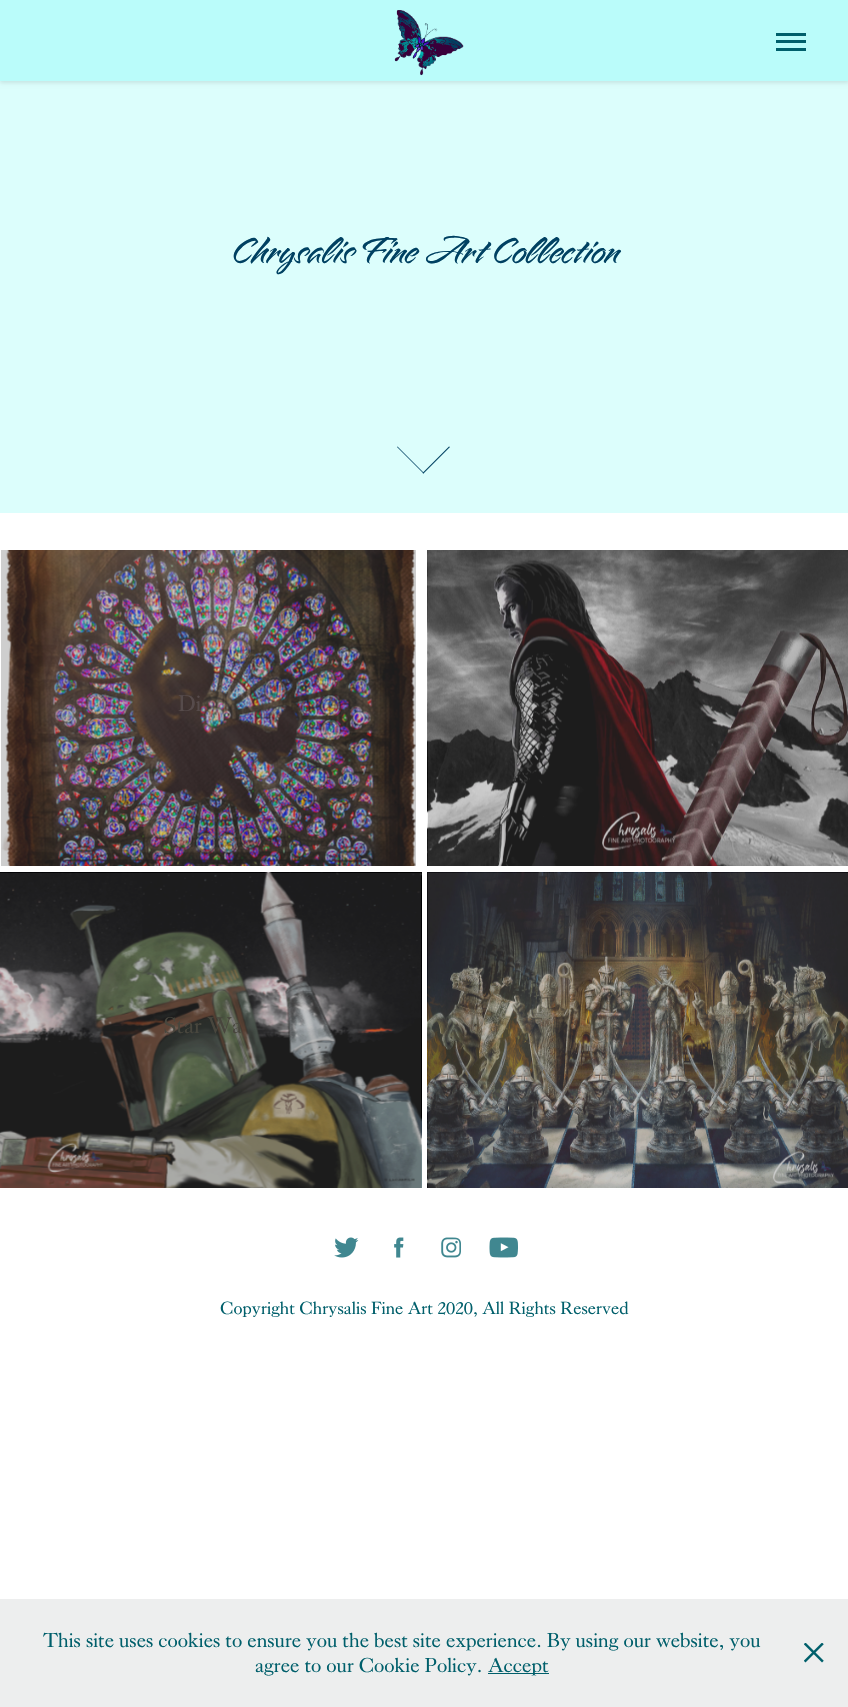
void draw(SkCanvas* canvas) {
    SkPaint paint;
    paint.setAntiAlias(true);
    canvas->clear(0xFFFFFFFF);
    paint.setColor(0xFFDCFEFC);
    canvas->drawRect(SkRect::MakeXYWH(0, 81, 848, 432), paint);
    paint.setColor(0x1A000000);
    paint.setMaskFilter(SkMaskFilter::MakeBlur(kNormal_SkBlurStyle, 2));
    canvas->drawRect(SkRect::MakeXYWH(0, 1, 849, 82), paint);
    paint.setMaskFilter(nullptr);
    paint.setColor(0xFFBAFCFA);
    canvas->drawRect(SkRect::MakeXYWH(0, 0, 848, 81), paint);
    canvas->drawImageRect(SkImages::DeferredFromEncodedData(SkData::MakeFromFileName("img1.png")), SkRect::MakeXYWH(394, 10, 70, 66), SkSamplingOptions());
    paint.setColor(0xFF005F6B);
    canvas->drawRect(SkRect::MakeXYWH(776, 33, 30, 3), paint);
    canvas->drawRect(SkRect::MakeXYWH(776, 40, 30, 3), paint);
    canvas->drawRect(SkRect::MakeXYWH(776, 48, 30, 3), paint);
    SkFont font1(fontMgr->matchFamilyStyle("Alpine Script", SkFontStyle::Normal()), 45);
    font1.setSubpixel(true);
    paint.setColor(0xFF004162);
    canvas->drawString("Chrysalis Fine Art Collection", 231, 263, font1, paint);
    canvas->drawPath(SkPathBuilder().moveTo(449, 446.5f).lineTo(450, 447).lineTo(423.5f, 473.5f).lineTo(422.5f, 473).close().detach(), paint);
    canvas->drawPath(SkPathBuilder().moveTo(397.5f, 446.5f).lineTo(424, 473).lineTo(423.5f, 473.5f).lineTo(397, 447).close().detach(), paint);
    canvas->drawImageRect(SkImages::DeferredFromEncodedData(SkData::MakeFromFileName("img2.png")), SkRect::MakeXYWH(1, 550, 415, 316), SkSamplingOptions());
    SkFont font2(fontMgr->matchFamilyStyle("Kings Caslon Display", SkFontStyle::Normal()), 22.5f);
    font2.setSubpixel(true);
    paint.setColor(0xFF564B4B);
    canvas->drawString("Di", 178, 711, font2, paint);
    canvas->drawImageRect(SkImages::DeferredFromEncodedData(SkData::MakeFromFileName("img3.png")), SkRect::MakeXYWH(427, 550, 421, 316), SkSamplingOptions());
    canvas->drawImageRect(SkImages::DeferredFromEncodedData(SkData::MakeFromFileName("img4.png")), SkRect::MakeXYWH(0, 872, 422, 316), SkSamplingOptions());
    paint.setColor(0xFF48463D);
    canvas->drawString("Star Wa", 163, 1033, font2, paint);
    canvas->drawImageRect(SkImages::DeferredFromEncodedData(SkData::MakeFromFileName("img5.png")), SkRect::MakeXYWH(427, 872, 421, 316), SkSamplingOptions());
    canvas->drawImageRect(SkImages::DeferredFromEncodedData(SkData::MakeFromFileName("img6.png")), SkRect::MakeXYWH(334, 1237, 25, 21), SkSamplingOptions());
    canvas->drawImageRect(SkImages::DeferredFromEncodedData(SkData::MakeFromFileName("img7.png")), SkRect::MakeXYWH(394, 1237, 10, 21), SkSamplingOptions());
    canvas->drawImageRect(SkImages::DeferredFromEncodedData(SkData::MakeFromFileName("img8.png")), SkRect::MakeXYWH(441, 1237, 20, 21), SkSamplingOptions());
    canvas->drawImageRect(SkImages::DeferredFromEncodedData(SkData::MakeFromFileName("img9.png")), SkRect::MakeXYWH(489, 1237, 29, 21), SkSamplingOptions());
    SkFont font3(fontMgr->matchFamilyStyle("Kings Caslon Display", SkFontStyle::Normal()), 17.5f);
    font3.setSubpixel(true);
    paint.setColor(0xFF005F6B);
    canvas->drawString("Copyright Chrysalis Fine Art 2020, All Rights Reserved", 220, 1314, font3, paint);
    paint.setColor(0xFFEDEEEE);
    canvas->drawRect(SkRect::MakeXYWH(0, 1599, 848, 108), paint);
    SkFont font4(fontMgr->matchFamilyStyle("Kings Caslon Display", SkFontStyle::Normal()), 20);
    font4.setSubpixel(true);
    paint.setColor(0xFF005F6B);
    canvas->drawString("This site uses cookies to ensure you the best site experience. By using our website, you", 43, 1647, font4, paint);
    canvas->drawString("agree to our Cookie Policy.", 255, 1672, font4, paint);
    canvas->drawRect(SkRect::MakeXYWH(488, 1673, 61, 1), paint);
    canvas->drawString("Accept", 488, 1672, font4, paint);
    canvas->drawImageRect(SkImages::DeferredFromEncodedData(SkData::MakeFromFileName("img10.png")), SkRect::MakeXYWH(804, 1643, 20, 20), SkSamplingOptions());
}
